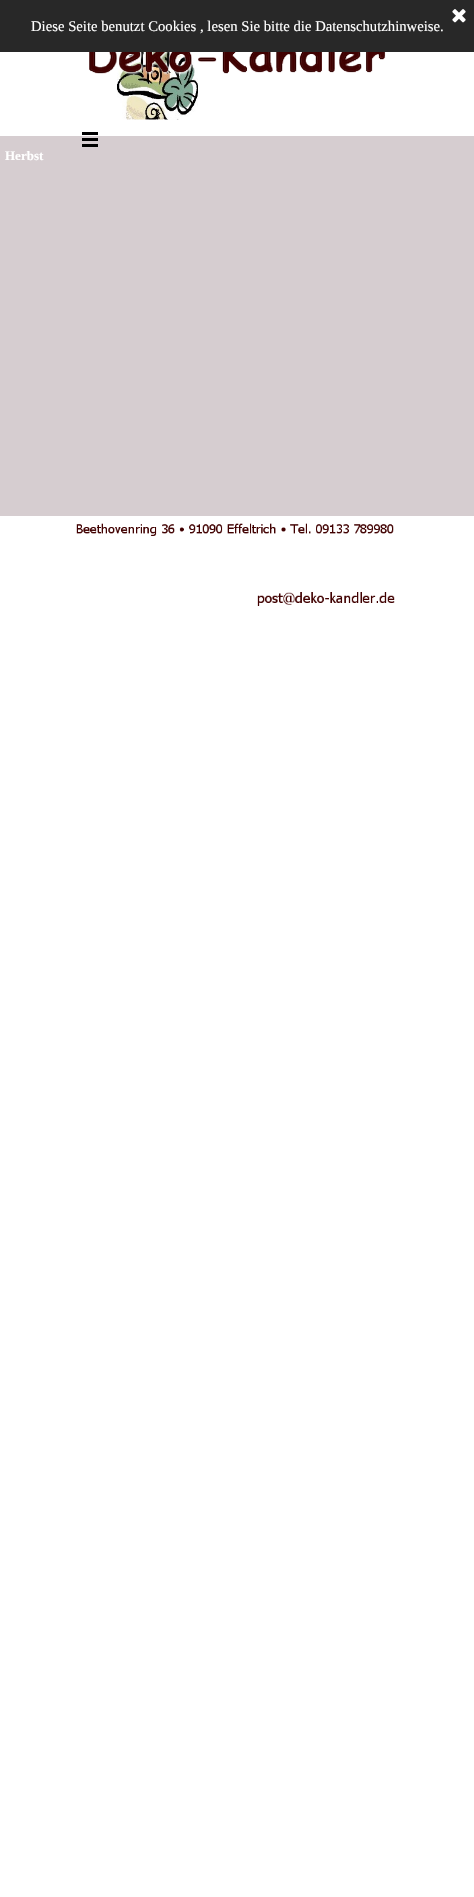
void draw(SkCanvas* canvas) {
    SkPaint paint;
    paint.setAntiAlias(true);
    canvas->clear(0xFFFFFFFF);
    paint.setColor(0xFF282828);
    canvas->drawRect(SkRect::MakeXYWH(0, 0, 474, 52), paint);
    canvas->drawImageRect(SkImages::DeferredFromEncodedData(SkData::MakeFromFileName("img1.png")), SkRect::MakeXYWH(452, 9, 14, 14), SkSamplingOptions());
    SkFont font1(fontMgr->matchFamilyStyle("Liberation Serif", SkFontStyle::Normal()), 14.7f);
    font1.setSubpixel(true);
    paint.setColor(0xFFFFFFFF);
    canvas->drawString("Diese Seite benutzt Cookies , lesen Sie bitte die Datenschutzhinweise.", 31, 31, font1, paint);
    canvas->drawImageRect(SkImages::DeferredFromEncodedData(SkData::MakeFromFileName("img3.png")), SkRect::MakeXYWH(117, 52, 81, 68), SkSamplingOptions());
    canvas->drawImageRect(SkImages::DeferredFromEncodedData(SkData::MakeFromFileName("img2.png")), SkRect::MakeXYWH(89, 52, 297, 23), SkSamplingOptions());
    paint.setColor(0xFF000000);
    canvas->drawRect(SkRect::MakeXYWH(82, 132, 16, 3), paint);
    paint.setColor(0xFFD6CDD0);
    canvas->drawRect(SkRect::MakeXYWH(0, 136, 474, 380), paint);
    paint.setColor(0xFF000000);
    canvas->drawRect(SkRect::MakeXYWH(82, 138, 16, 3), paint);
    canvas->drawRect(SkRect::MakeXYWH(82, 144, 16, 3), paint);
    SkFont font2(fontMgr->matchFamilyStyle("Liberation Serif", SkFontStyle::Bold()), 13);
    font2.setSubpixel(true);
    paint.setColor(0xFFFFFFFF);
    canvas->drawString("Herbst", 5, 160, font2, paint);
    canvas->drawImageRect(SkImages::DeferredFromEncodedData(SkData::MakeFromFileName("img4.png")), SkRect::MakeXYWH(76, 523, 318, 13), SkSamplingOptions());
    canvas->drawImageRect(SkImages::DeferredFromEncodedData(SkData::MakeFromFileName("img5.png")), SkRect::MakeXYWH(257, 592, 138, 14), SkSamplingOptions());
}
